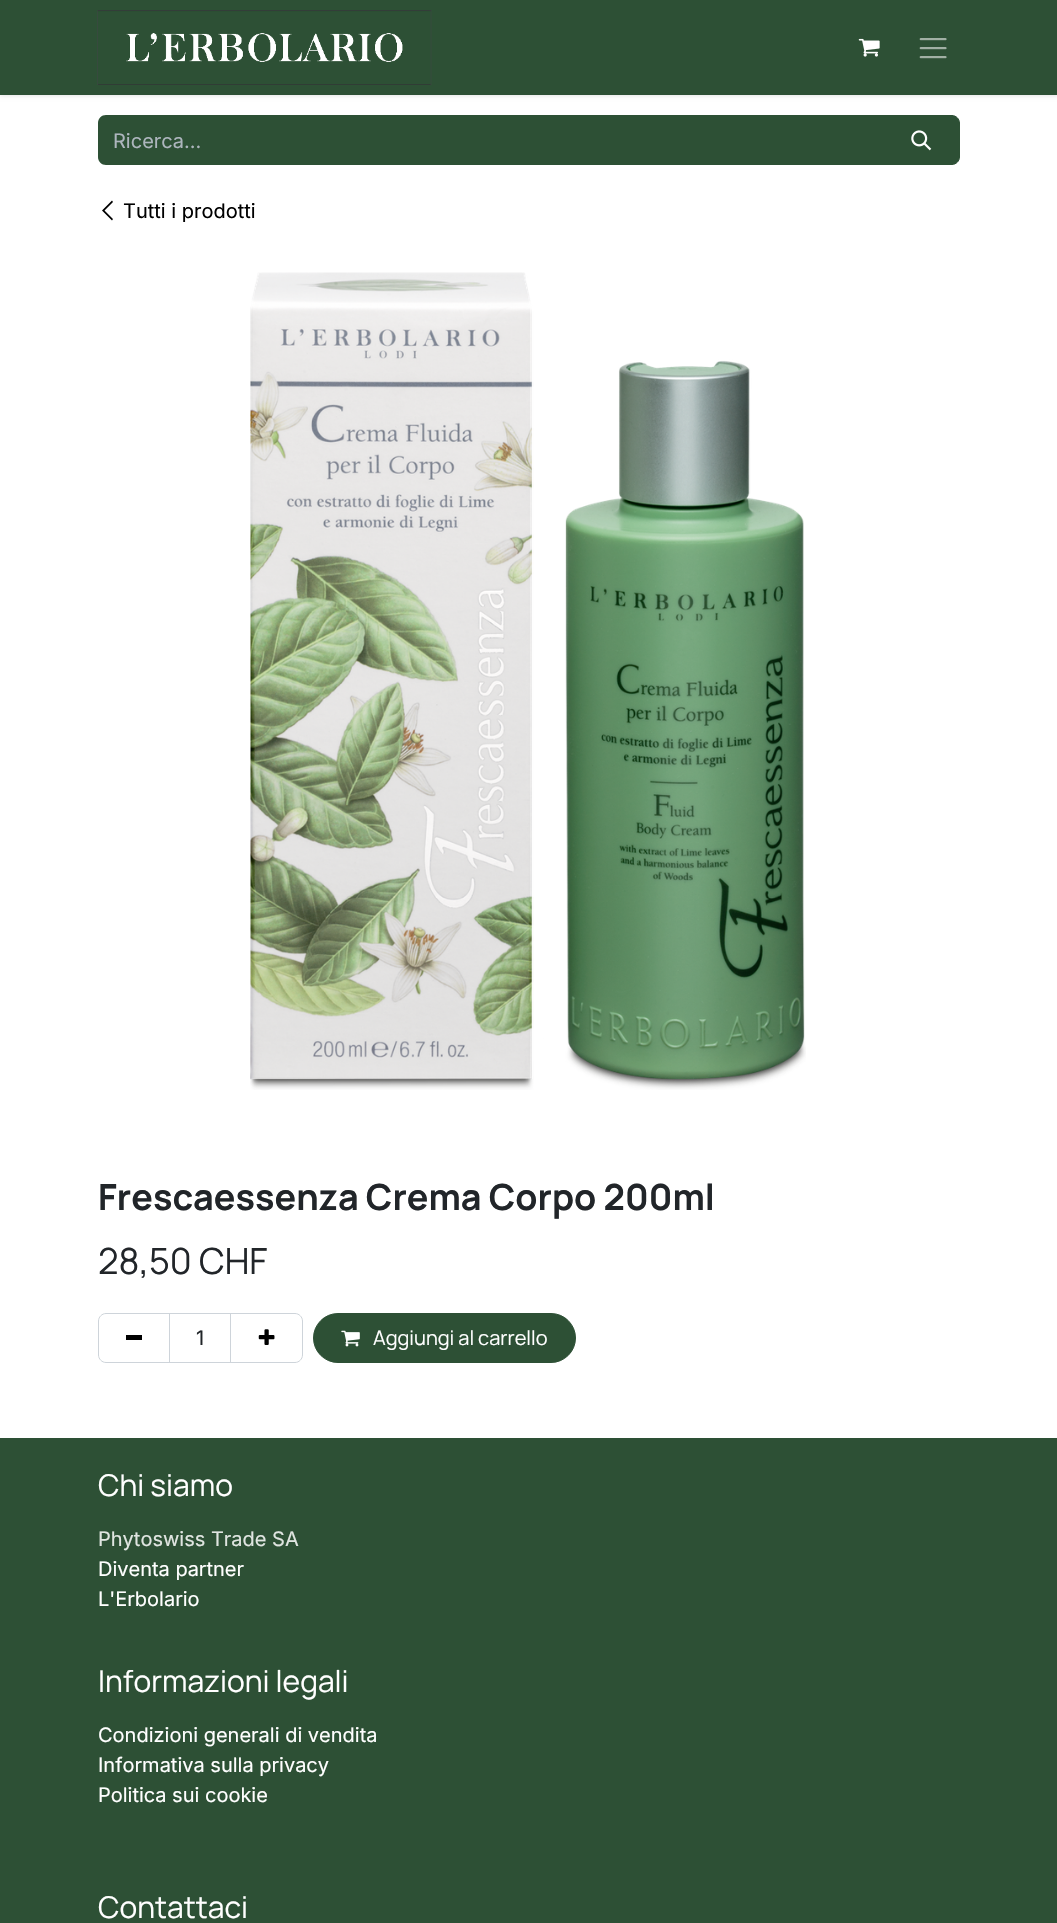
void draw(SkCanvas* canvas) {
    SkPaint paint;
    paint.setAntiAlias(true);
    canvas->clear(0xFFFFFFFF);
    paint.setColor(0x1A000000);
    paint.setMaskFilter(SkMaskFilter::MakeBlur(kNormal_SkBlurStyle, 2));
    canvas->drawRect(SkRect::MakeXYWH(0, 1, 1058, 95), paint);
    paint.setMaskFilter(nullptr);
    paint.setColor(0xFF2D5035);
    canvas->drawRect(SkRect::MakeXYWH(0, 0, 1057, 95), paint);
    canvas->drawImageRect(SkImages::DeferredFromEncodedData(SkData::MakeFromFileName("img1.png")), SkRect::MakeXYWH(97, 10, 335, 75), SkSamplingOptions());
    canvas->drawImageRect(SkImages::DeferredFromEncodedData(SkData::MakeFromFileName("img2.png")), SkRect::MakeXYWH(858, 38, 22, 19), SkSamplingOptions());
    canvas->drawImageRect(SkImages::DeferredFromEncodedData(SkData::MakeFromFileName("img3.png")), SkRect::MakeXYWH(919, 38, 28, 21), SkSamplingOptions());
    canvas->drawPath(SkPathBuilder().moveTo(106, 115).lineTo(885, 115).lineTo(885, 165).lineTo(106, 165).cubicTo(101.5f, 165, 98, 161.5f, 98, 157).lineTo(98, 123).cubicTo(98, 118.5f, 101.5f, 115, 106, 115).close().detach(), paint);
    SkFont font1(fontMgr->matchFamilyStyle("Inter", SkFontStyle::Normal()), 20);
    font1.setSubpixel(true);
    paint.setColor(0xFFADB5BD);
    canvas->drawString("Ricerca...", 113, 148, font1, paint);
    paint.setColor(0xFF2D5035);
    canvas->drawPath(SkPathBuilder().moveTo(884.5f, 115.5f).lineTo(952, 115.5f).cubicTo(956, 115.5f, 959.5f, 119, 959.5f, 123).lineTo(959.5f, 157).cubicTo(959.5f, 161, 956, 164.5f, 952, 164.5f).lineTo(884.5f, 164.5f).close().detach(), paint);
    paint.setStyle(SkPaint::kStroke_Style);
    paint.setStrokeWidth(1);
    canvas->drawPath(SkPathBuilder().moveTo(884.5f, 115.5f).lineTo(952, 115.5f).cubicTo(956, 115.5f, 959.5f, 119, 959.5f, 123).lineTo(959.5f, 157).cubicTo(959.5f, 161, 956, 164.5f, 952, 164.5f).lineTo(884.5f, 164.5f).close().detach(), paint);
    canvas->drawImageRect(SkImages::DeferredFromEncodedData(SkData::MakeFromFileName("img4.png")), SkRect::MakeXYWH(911, 130, 21, 21), SkSamplingOptions());
    paint.setStyle(SkPaint::kFill_Style);
    paint.setColor(0xFF000000);
    canvas->drawPath(SkPathBuilder().moveTo(102, 210.5f).lineTo(112, 200.5f).lineTo(113, 202).lineTo(104.5f, 210.5f).lineTo(113, 219).lineTo(112, 220.5f).close().detach(), paint);
    canvas->drawString("Tutti i prodotti", 123, 218, font1, paint);
    canvas->drawImageRect(SkImages::DeferredFromEncodedData(SkData::MakeFromFileName("img5.png")), SkRect::MakeXYWH(250, 272, 556, 818), SkSamplingOptions());
    SkFont font2(fontMgr->matchFamilyStyle("Manrope", SkFontStyle::Bold()), 36);
    font2.setSubpixel(true);
    paint.setColor(0xFF212529);
    canvas->drawString("Frescaessenza Crema Corpo 200ml", 98, 1210, font2, paint);
    SkFont font3(fontMgr->matchFamilyStyle("Manrope", SkFontStyle::Normal()), 36);
    font3.setSubpixel(true);
    canvas->drawString("28,50 CHF", 98, 1274, font3, paint);
    paint.setStyle(SkPaint::kStroke_Style);
    paint.setColor(0xFFCED4DA);
    canvas->drawRect(SkRect::MakeXYWH(169.5f, 1313.5f, 61, 49), paint);
    canvas->drawPath(SkPathBuilder().moveTo(106, 1313.5f).lineTo(169.5f, 1313.5f).lineTo(169.5f, 1362.5f).lineTo(106, 1362.5f).cubicTo(102, 1362.5f, 98.5f, 1359, 98.5f, 1355).lineTo(98.5f, 1321).cubicTo(98.5f, 1317, 102, 1313.5f, 106, 1313.5f).close().detach(), paint);
    paint.setStyle(SkPaint::kFill_Style);
    paint.setColor(0xFF000000);
    canvas->drawRect(SkRect::MakeXYWH(126, 1335, 16, 5), paint);
    paint.setColor(0xFF212529);
    canvas->drawString("1", 196, 1345, font1, paint);
    paint.setStyle(SkPaint::kStroke_Style);
    paint.setColor(0xFFCED4DA);
    canvas->drawPath(SkPathBuilder().moveTo(230.5f, 1313.5f).lineTo(295, 1313.5f).cubicTo(299, 1313.5f, 302.5f, 1317, 302.5f, 1321).lineTo(302.5f, 1355).cubicTo(302.5f, 1359, 299, 1362.5f, 295, 1362.5f).lineTo(230.5f, 1362.5f).close().detach(), paint);
    canvas->drawImageRect(SkImages::DeferredFromEncodedData(SkData::MakeFromFileName("img6.png")), SkRect::MakeXYWH(258, 1329, 17, 16), SkSamplingOptions());
    paint.setStyle(SkPaint::kFill_Style);
    paint.setColor(0xFF2D5035);
    canvas->drawRoundRect(SkRect::MakeXYWH(313.5f, 1313.5f, 262, 49), 24.5f, 24.5f, paint);
    paint.setStyle(SkPaint::kStroke_Style);
    canvas->drawRoundRect(SkRect::MakeXYWH(313.5f, 1313.5f, 262, 49), 24.5f, 24.5f, paint);
    canvas->drawImageRect(SkImages::DeferredFromEncodedData(SkData::MakeFromFileName("img7.png")), SkRect::MakeXYWH(341, 1330, 19, 17), SkSamplingOptions());
    SkFont font4(fontMgr->matchFamilyStyle("Manrope", SkFontStyle::Normal()), 20);
    font4.setSubpixel(true);
    paint.setStyle(SkPaint::kFill_Style);
    paint.setColor(0xFFFFFFFF);
    canvas->drawString("Aggiungi al carrello", 373, 1345, font4, paint);
    paint.setColor(0xFF2D5035);
    canvas->drawRect(SkRect::MakeXYWH(0, 1438, 1057, 485), paint);
    SkFont font5(fontMgr->matchFamilyStyle("Manrope", SkFontStyle::Normal()), 30);
    font5.setSubpixel(true);
    paint.setColor(0xFFFFFFFF);
    canvas->drawString("Chi siamo", 98, 1496, font5, paint);
    paint.setColor(0xFFE0E5E1);
    canvas->drawString("Phytoswiss Trade SA", 98, 1546, font1, paint);
    paint.setColor(0xFFFFFFFF);
    canvas->drawString("Diventa partner", 98, 1576, font1, paint);
    canvas->drawString("L'Erbolario", 98, 1606, font1, paint);
    canvas->drawString("Informazioni legali", 98, 1692, font5, paint);
    canvas->drawString("Condizioni generali di vendita", 98, 1742, font1, paint);
    canvas->drawString("Informativa sulla privacy", 98, 1772, font1, paint);
    canvas->drawString("Politica sui cookie", 98, 1802, font1, paint);
    canvas->drawString("Contattaci", 98, 1918, font5, paint);
}
